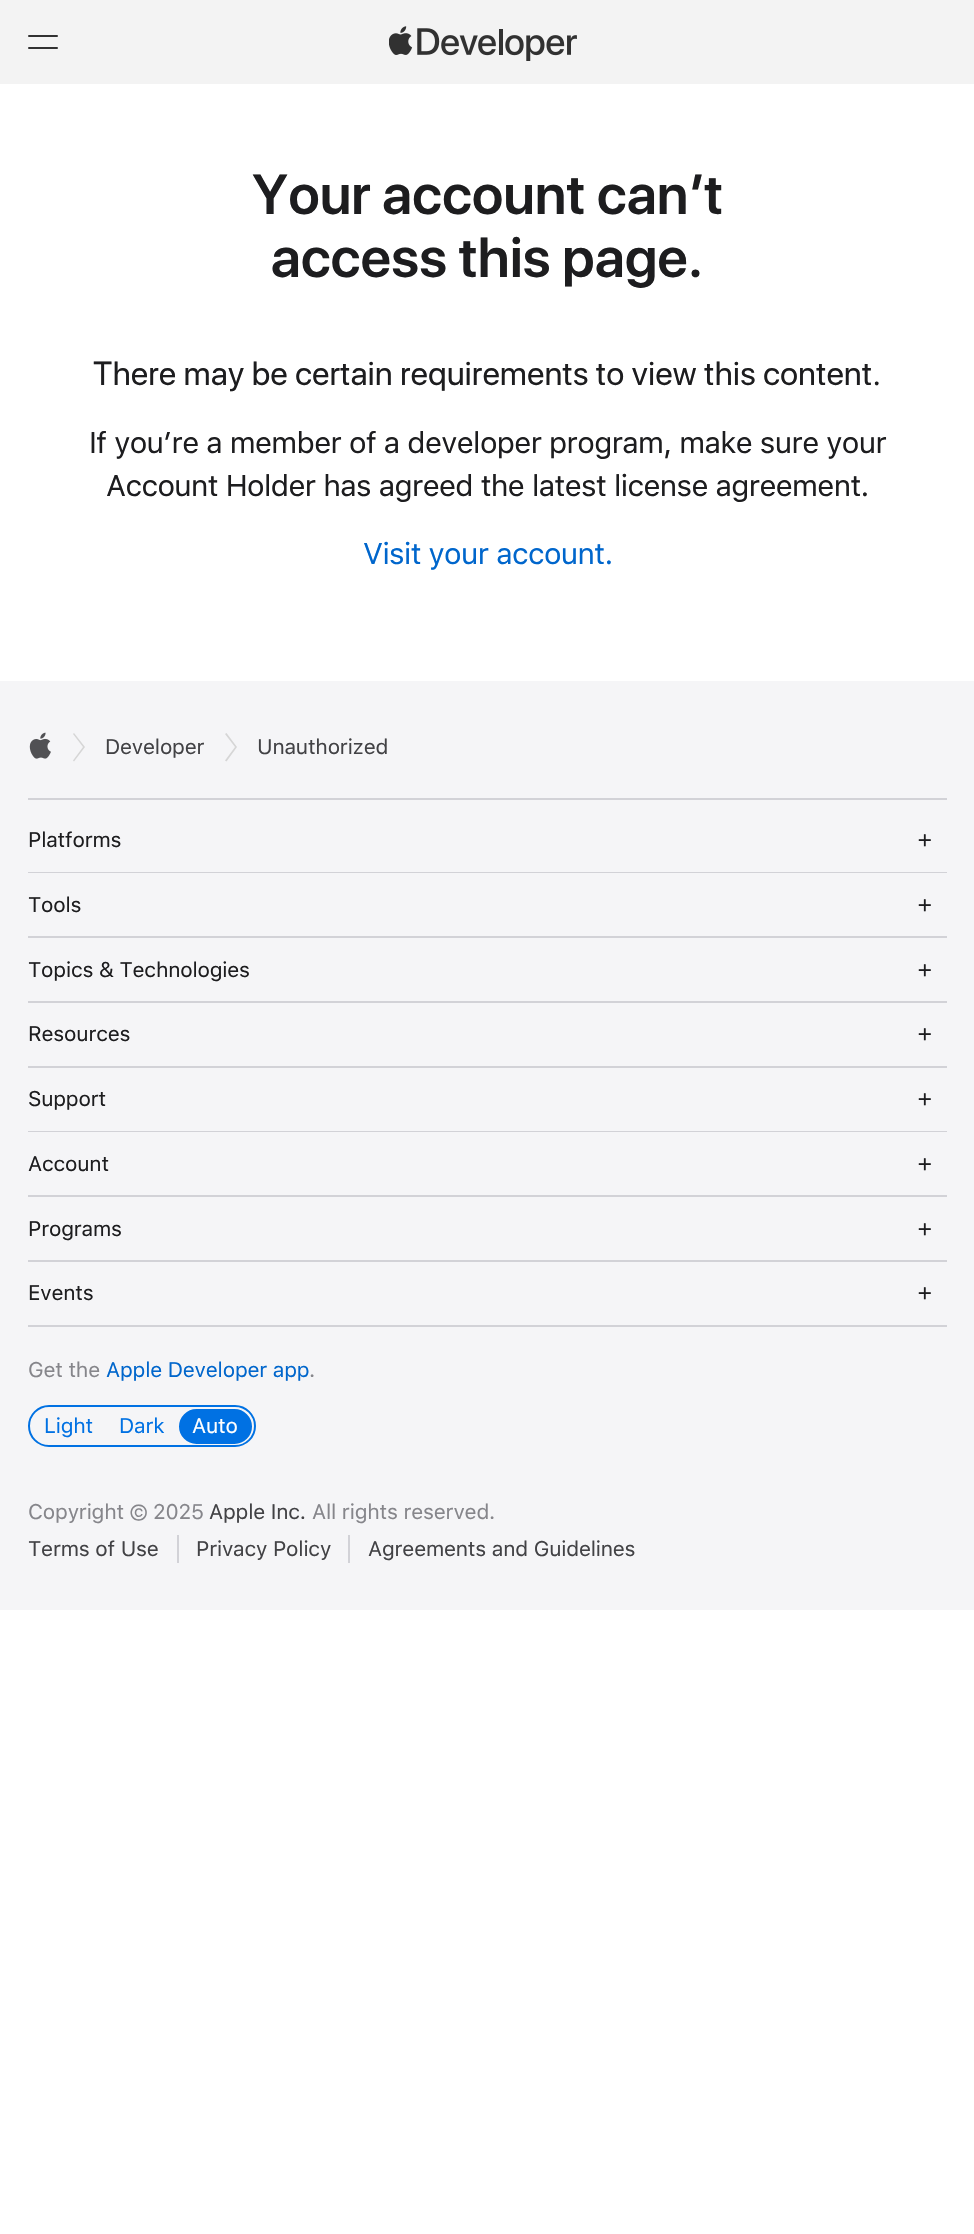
void draw(SkCanvas* canvas) {
    SkPaint paint;
    paint.setAntiAlias(true);
    auto spacedText = [&](const char* s, float x, float y, const SkFont& font, const SkPaint& ink, float letter, float word) {
        std::vector<SkGlyphID> glyphs(font.countText(s, strlen(s), SkTextEncoding::kUTF8));
        std::vector<float> xs(glyphs.size());
        font.textToGlyphs(s, strlen(s), SkTextEncoding::kUTF8, glyphs);
        font.getXPos(glyphs, xs, x);
        float extra = 0;
        for (size_t i = 0; i < glyphs.size(); i++) {
            xs[i] += extra;
            extra += letter + word * (glyphs[i] == font.unicharToGlyph(' '));
        }
        canvas->drawTextBlob(SkTextBlob::MakeFromPosHGlyphs(glyphs, xs, y, font), 0, 0, ink);
    };
    canvas->clear(0xFFFFFFFF);
    paint.setColor(0xFFF3F3F3);
    canvas->drawRect(SkRect::MakeXYWH(0, 0, 974, 84), paint);
    paint.setColor(0xFF313131);
    canvas->drawRoundRect(SkRect::MakeXYWH(28, 35, 30, 2), 1, 1, paint);
    canvas->drawRoundRect(SkRect::MakeXYWH(28, 47, 30, 2), 1, 1, paint);
    canvas->drawImageRect(SkImages::DeferredFromEncodedData(SkData::MakeFromFileName("img1.png")), SkRect::MakeXYWH(389, 26, 188, 35), SkSamplingOptions());
    SkFont font1(fontMgr->matchFamilyStyle("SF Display", SkFontStyle(600, SkFontStyle::kNormal_Width, SkFontStyle::kUpright_Slant)), 56);
    font1.setSubpixel(true);
    paint.setColor(0xFF1D1D1F);
    spacedText("Your account can’t", 252, 214, font1, paint, 0.25f, 0);
    spacedText("access this page.", 271, 277, font1, paint, 0.25f, 0);
    SkFont font2(fontMgr->matchFamilyStyle("SF Display", SkFontStyle::Normal()), 33.25f);
    font2.setSubpixel(true);
    spacedText("There may be certain requirements to view this content.", 93, 385, font2, paint, 0.4f, 0);
    SkFont font3(fontMgr->matchFamilyStyle("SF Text", SkFontStyle::Normal()), 29.75f);
    font3.setSubpixel(true);
    spacedText("If you’re a member of a developer program, make sure your", 89, 453, font3, paint, -0.65f, 0);
    spacedText("Account Holder has agreed the latest license agreement.", 106, 496, font3, paint, -0.65f, 0);
    paint.setColor(0xFF0066CC);
    spacedText("Visit your account.", 363, 564, font3, paint, -0.65f, 0);
    paint.setColor(0xFFF5F5F7);
    canvas->drawRect(SkRect::MakeXYWH(0, 681, 974, 929), paint);
    paint.setColor(0xFFD2D2D7);
    canvas->drawRect(SkRect::MakeXYWH(28, 798, 919, 2), paint);
    canvas->drawImageRect(SkImages::DeferredFromEncodedData(SkData::MakeFromFileName("img2.png")), SkRect::MakeXYWH(29, 732, 22, 27), SkSamplingOptions());
    paint.setColor(0xFFD6D6D6);
    canvas->drawPath(SkPathBuilder().moveTo(74, 733).lineTo(85, 747).lineTo(74, 761.5f).lineTo(73, 760.5f).lineTo(83, 747).lineTo(73, 734).close().detach(), paint);
    SkFont font4(fontMgr->matchFamilyStyle("SF Text", SkFontStyle::Normal()), 21);
    font4.setSubpixel(true);
    paint.setColor(0xFF424245);
    spacedText("Developer", 105, 754, font4, paint, -0.2f, 0);
    paint.setColor(0xFFD6D6D6);
    canvas->drawPath(SkPathBuilder().moveTo(226.5f, 733).lineTo(237, 747).lineTo(226.5f, 761.5f).lineTo(225, 760.5f).lineTo(235, 747).lineTo(225, 734).close().detach(), paint);
    paint.setColor(0xFF424245);
    spacedText("Unauthorized", 257, 754, font4, paint, -0.2f, 0);
    paint.setColor(0xFFD2D2D7);
    canvas->drawRect(SkRect::MakeXYWH(28, 872, 919, 1), paint);
    paint.setColor(0xFF1D1D1F);
    spacedText("Platforms", 28, 847, font4, paint, -0.2f, 0);
    SkFont font5(fontMgr->matchFamilyStyle("SF Text", SkFontStyle::Normal()), 24);
    font5.setSubpixel(true);
    spacedText("+", 917, 847, font5, paint, -0.2f, 0);
    paint.setColor(0xFFD2D2D7);
    canvas->drawRect(SkRect::MakeXYWH(28, 936, 919, 2), paint);
    paint.setColor(0xFF1D1D1F);
    spacedText("Tools", 28, 912, font4, paint, -0.2f, 0);
    spacedText("+", 917, 912, font5, paint, -0.2f, 0);
    paint.setColor(0xFFD2D2D7);
    canvas->drawRect(SkRect::MakeXYWH(28, 1001, 919, 2), paint);
    paint.setColor(0xFF1D1D1F);
    spacedText("Topics & Technologies", 28, 977, font4, paint, -0.2f, 0);
    spacedText("+", 917, 977, font5, paint, -0.2f, 0);
    paint.setColor(0xFFD2D2D7);
    canvas->drawRect(SkRect::MakeXYWH(28, 1066, 919, 2), paint);
    paint.setColor(0xFF1D1D1F);
    spacedText("Resources", 28, 1041, font4, paint, -0.2f, 0);
    spacedText("+", 917, 1041, font5, paint, -0.2f, 0);
    paint.setColor(0xFFD2D2D7);
    canvas->drawRect(SkRect::MakeXYWH(28, 1131, 919, 1), paint);
    paint.setColor(0xFF1D1D1F);
    spacedText("Support", 28, 1106, font4, paint, -0.2f, 0);
    spacedText("+", 917, 1106, font5, paint, -0.2f, 0);
    paint.setColor(0xFFD2D2D7);
    canvas->drawRect(SkRect::MakeXYWH(28, 1195, 919, 2), paint);
    paint.setColor(0xFF1D1D1F);
    spacedText("Account", 28, 1171, font4, paint, -0.2f, 0);
    spacedText("+", 917, 1171, font5, paint, -0.2f, 0);
    paint.setColor(0xFFD2D2D7);
    canvas->drawRect(SkRect::MakeXYWH(28, 1260, 919, 2), paint);
    paint.setColor(0xFF1D1D1F);
    spacedText("Programs", 28, 1236, font4, paint, -0.2f, 0);
    spacedText("+", 917, 1236, font5, paint, -0.2f, 0);
    paint.setColor(0xFFD2D2D7);
    canvas->drawRect(SkRect::MakeXYWH(28, 1325, 919, 2), paint);
    paint.setColor(0xFF1D1D1F);
    spacedText("Events", 28, 1300, font4, paint, -0.2f, 0);
    spacedText("+", 917, 1300, font5, paint, -0.2f, 0);
    paint.setColor(0xFF86868B);
    spacedText("Get the", 28, 1377, font4, paint, -0.2f, 0);
    paint.setColor(0xFF0066CC);
    spacedText("Apple Developer app", 106, 1377, font4, paint, -0.2f, 0);
    paint.setColor(0xFF86868B);
    spacedText(".", 309, 1377, font4, paint, -0.2f, 0);
    paint.setStyle(SkPaint::kStroke_Style);
    paint.setStrokeWidth(2);
    paint.setColor(0xFF0071E3);
    canvas->drawRoundRect(SkRect::MakeXYWH(29, 1406, 226, 40), 20, 20, paint);
    paint.setStyle(SkPaint::kFill_Style);
    spacedText("Light", 44, 1433, font4, paint, -0.2f, 0);
    spacedText("Dark", 119, 1433, font4, paint, -0.2f, 0);
    canvas->drawRoundRect(SkRect::MakeXYWH(180, 1410, 71, 33), 16.5f, 16.5f, paint);
    paint.setStyle(SkPaint::kStroke_Style);
    canvas->drawRoundRect(SkRect::MakeXYWH(180, 1410, 71, 33), 16.5f, 16.5f, paint);
    paint.setStyle(SkPaint::kFill_Style);
    paint.setColor(0xFFFFFFFF);
    spacedText("Auto", 192, 1433, font4, paint, -0.2f, 0);
    paint.setColor(0xFF86868B);
    spacedText("Copyright © 2025", 28, 1519, font4, paint, -0.2f, 0);
    paint.setColor(0xFF424245);
    spacedText("Apple Inc.", 209, 1519, font4, paint, -0.2f, 0);
    paint.setColor(0xFF86868B);
    spacedText("All rights reserved.", 312, 1519, font4, paint, -0.2f, 0);
    paint.setColor(0xFFD2D2D7);
    canvas->drawRect(SkRect::MakeXYWH(177, 1535, 2, 28), paint);
    paint.setColor(0xFF424245);
    spacedText("Terms of Use", 28, 1556, font4, paint, -0.2f, 0);
    paint.setColor(0xFFD2D2D7);
    canvas->drawRect(SkRect::MakeXYWH(348, 1535, 2, 28), paint);
    paint.setColor(0xFF424245);
    spacedText("Privacy Policy", 196, 1556, font4, paint, -0.2f, 0);
    spacedText("Agreements and Guidelines", 368, 1556, font4, paint, -0.2f, 0);
}
